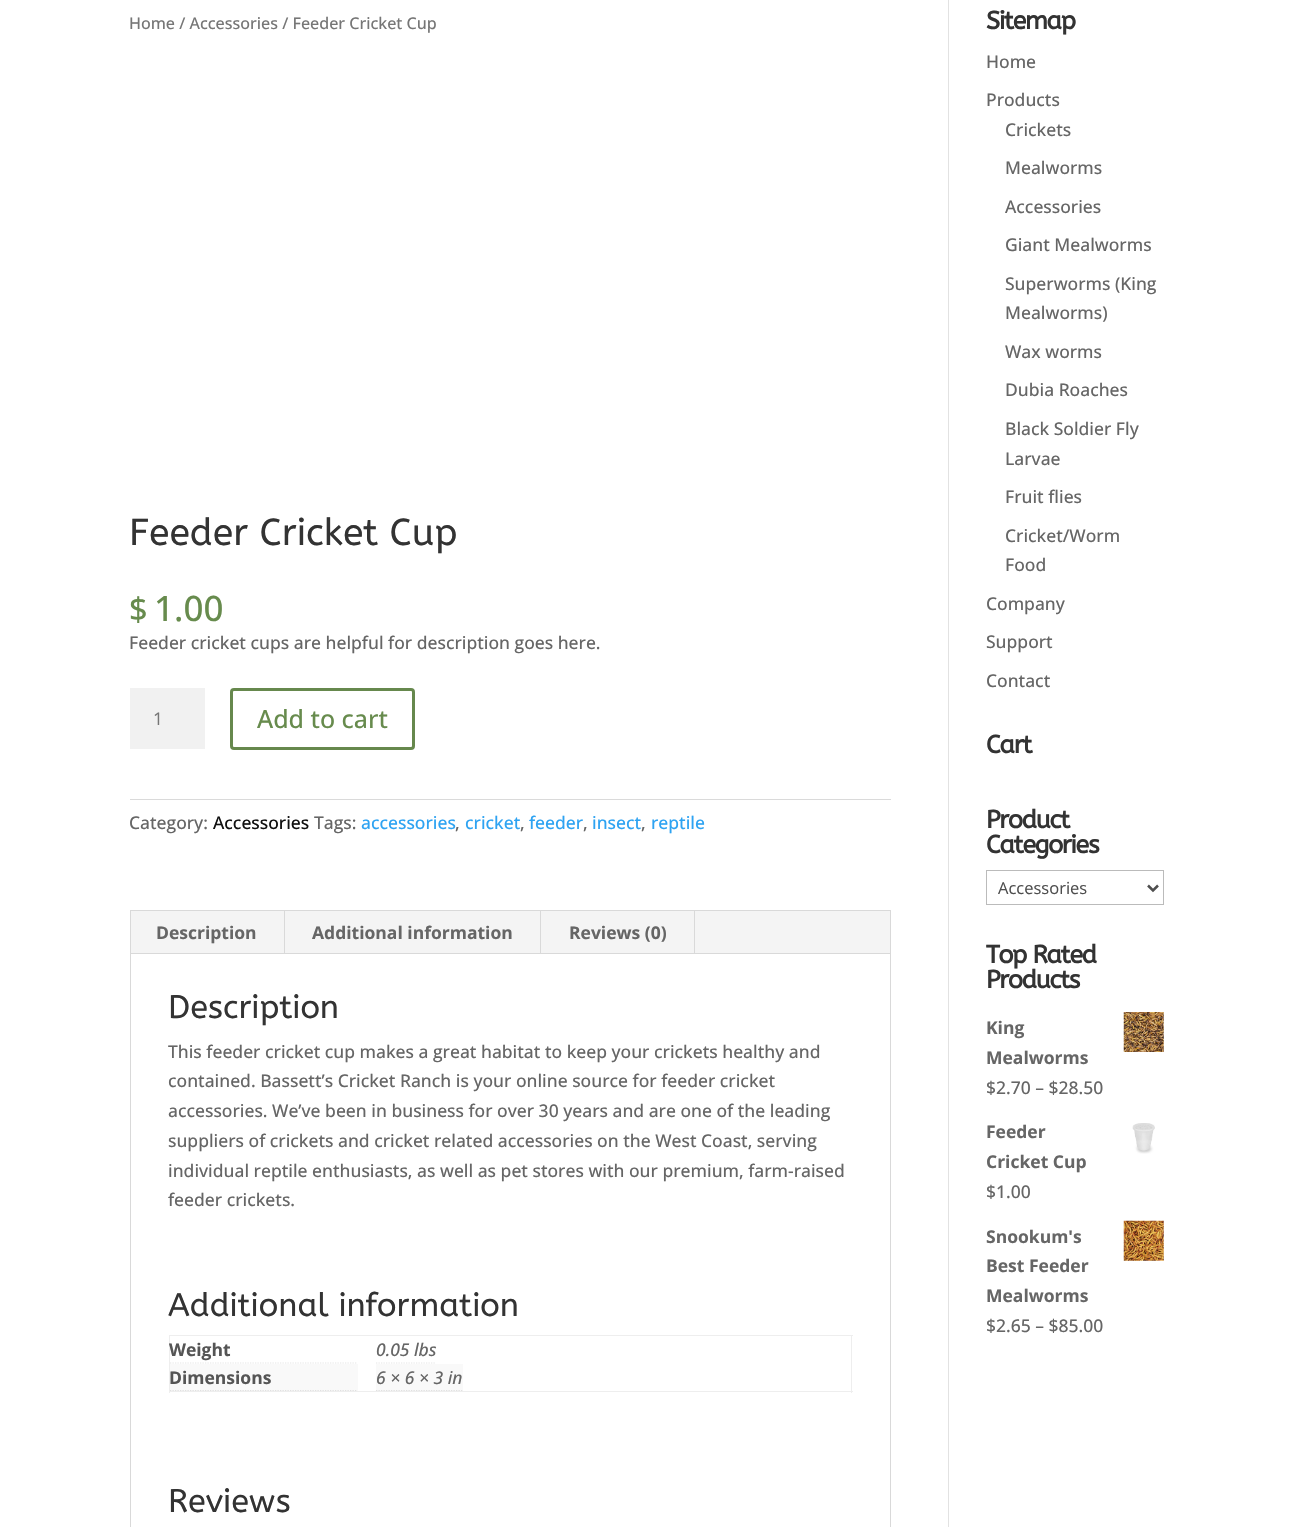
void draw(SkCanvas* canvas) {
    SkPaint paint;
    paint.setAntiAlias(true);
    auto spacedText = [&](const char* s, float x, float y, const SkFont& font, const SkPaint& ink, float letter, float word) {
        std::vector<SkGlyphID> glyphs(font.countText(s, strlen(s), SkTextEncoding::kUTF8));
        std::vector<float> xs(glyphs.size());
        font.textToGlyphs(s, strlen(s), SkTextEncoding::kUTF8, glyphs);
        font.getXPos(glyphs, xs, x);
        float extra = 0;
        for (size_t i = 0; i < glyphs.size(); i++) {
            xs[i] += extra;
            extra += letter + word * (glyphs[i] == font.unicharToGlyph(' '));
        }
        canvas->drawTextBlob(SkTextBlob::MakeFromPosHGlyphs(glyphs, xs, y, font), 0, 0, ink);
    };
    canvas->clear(0xFFFFFFFF);
    paint.setColor(0xFFE2E2E2);
    canvas->drawRect(SkRect::MakeXYWH(948, 0, 1, 1527), paint);
    SkFont font1(fontMgr->matchFamilyStyle("Open Sans", SkFontStyle(500, SkFontStyle::kNormal_Width, SkFontStyle::kUpright_Slant)), 16.1f);
    font1.setSubpixel(true);
    paint.setColor(0xFF767676);
    canvas->drawString("Home / Accessories / Feeder Cricket Cup", 129, 29, font1, paint);
    SkFont font2(fontMgr->matchFamilyStyle("ABeeZee", SkFontStyle::Normal()), 37.5f);
    font2.setSubpixel(true);
    paint.setColor(0xFF333333);
    canvas->drawString("Feeder Cricket Cup", 129, 545, font2, paint);
    SkFont font3(fontMgr->matchFamilyStyle("Open Sans", SkFontStyle(500, SkFontStyle::kNormal_Width, SkFontStyle::kUpright_Slant)), 32.5f);
    font3.setSubpixel(true);
    paint.setColor(0xFF678B4D);
    canvas->drawString("$", 129, 621, font3, paint);
    SkFont font4(fontMgr->matchFamilyStyle("Open Sans", SkFontStyle(500, SkFontStyle::kNormal_Width, SkFontStyle::kUpright_Slant)), 35);
    font4.setSubpixel(true);
    canvas->drawString("1.00", 154, 621, font4, paint);
    SkFont font5(fontMgr->matchFamilyStyle("Open Sans", SkFontStyle(500, SkFontStyle::kNormal_Width, SkFontStyle::kUpright_Slant)), 17.5f);
    font5.setSubpixel(true);
    paint.setColor(0xFF666666);
    canvas->drawString("Feeder cricket cups are helpful for description goes here.", 129, 649, font5, paint);
    paint.setColor(0xFFF1F1F1);
    canvas->drawRect(SkRect::MakeXYWH(130, 688, 75, 61), paint);
    SkFont font6(fontMgr->matchFamilyStyle("Open Sans", SkFontStyle::Normal()), 17.5f);
    font6.setSubpixel(true);
    paint.setColor(0xFF767676);
    canvas->drawString("1", 153, 725, font6, paint);
    paint.setStyle(SkPaint::kStroke_Style);
    paint.setStrokeWidth(3);
    paint.setColor(0xFF66884D);
    canvas->drawRoundRect(SkRect::MakeXYWH(231.5f, 689.5f, 182, 59), 2.5f, 2.5f, paint);
    SkFont font7(fontMgr->matchFamilyStyle("Open Sans", SkFontStyle(500, SkFontStyle::kNormal_Width, SkFontStyle::kUpright_Slant)), 25);
    font7.setSubpixel(true);
    paint.setStyle(SkPaint::kFill_Style);
    paint.setColor(0xFF678B4D);
    canvas->drawString("Add to cart", 257, 728, font7, paint);
    paint.setColor(0xFFDADADA);
    canvas->drawRect(SkRect::MakeXYWH(130, 799, 761, 1), paint);
    paint.setColor(0xFF666666);
    canvas->drawString("Category:", 129, 829, font5, paint);
    paint.setColor(0xFF111111);
    canvas->drawString("Accessories", 213, 829, font5, paint);
    paint.setColor(0xFF666666);
    canvas->drawString("Tags:", 314, 829, font5, paint);
    paint.setColor(0xFF2EA3F2);
    canvas->drawString("accessories", 361, 829, font5, paint);
    paint.setColor(0xFF666666);
    canvas->drawString(",", 455, 829, font5, paint);
    paint.setColor(0xFF2EA3F2);
    canvas->drawString("cricket", 465, 829, font5, paint);
    paint.setColor(0xFF666666);
    canvas->drawString(",", 520, 829, font5, paint);
    paint.setColor(0xFF2EA3F2);
    canvas->drawString("feeder", 529, 829, font5, paint);
    paint.setColor(0xFF666666);
    canvas->drawString(",", 583, 829, font5, paint);
    paint.setColor(0xFF2EA3F2);
    canvas->drawString("insect", 592, 829, font5, paint);
    paint.setColor(0xFF666666);
    canvas->drawString(",", 641, 829, font5, paint);
    paint.setColor(0xFF2EA3F2);
    canvas->drawString("reptile", 651, 829, font5, paint);
    paint.setStyle(SkPaint::kStroke_Style);
    paint.setStrokeWidth(1);
    paint.setColor(0xFFD9D9D9);
    canvas->drawRect(SkRect::MakeXYWH(130.5f, 910.5f, 760, 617), paint);
    paint.setStyle(SkPaint::kFill_Style);
    paint.setColor(0xFFF4F4F4);
    canvas->drawRect(SkRect::MakeXYWH(131, 911, 759, 42), paint);
    paint.setColor(0xFFD9D9D9);
    canvas->drawRect(SkRect::MakeXYWH(284, 911, 1, 43), paint);
    SkFont font8(fontMgr->matchFamilyStyle("Open Sans", SkFontStyle::Bold()), 17.5f);
    font8.setSubpixel(true);
    paint.setColor(0xFF666666);
    canvas->drawString("Description", 156, 939, font8, paint);
    paint.setColor(0xFFD9D9D9);
    canvas->drawRect(SkRect::MakeXYWH(540, 911, 1, 43), paint);
    paint.setColor(0xFF666666);
    canvas->drawString("Additional information", 312, 939, font8, paint);
    paint.setColor(0xFFD9D9D9);
    canvas->drawRect(SkRect::MakeXYWH(694, 911, 1, 43), paint);
    paint.setColor(0xFF666666);
    canvas->drawString("Reviews (0)", 569, 939, font8, paint);
    paint.setColor(0xFFD9D9D9);
    canvas->drawRect(SkRect::MakeXYWH(131, 953, 759, 1), paint);
    SkFont font9(fontMgr->matchFamilyStyle("ABeeZee", SkFontStyle::Normal()), 32.5f);
    font9.setSubpixel(true);
    paint.setColor(0xFF333333);
    canvas->drawString("Description", 168, 1018, font9, paint);
    paint.setColor(0xFF666666);
    canvas->drawString("This feeder cricket cup makes a great habitat to keep your crickets healthy and", 168, 1058, font5, paint);
    canvas->drawString("contained. Bassett’s Cricket Ranch is your online source for feeder cricket", 168, 1087, font5, paint);
    canvas->drawString("accessories. We’ve been in business for over 30 years and are one of the leading", 168, 1117, font5, paint);
    canvas->drawString("suppliers of crickets and cricket related accessories on the West Coast, serving", 168, 1147, font5, paint);
    canvas->drawString("individual reptile enthusiasts, as well as pet stores with our premium, farm-raised", 168, 1177, font5, paint);
    canvas->drawString("feeder crickets.", 168, 1206, font5, paint);
    paint.setColor(0xFF333333);
    canvas->drawString("Additional information", 168, 1316, font9, paint);
    paint.setColor(0xFFEEEEEE);
    canvas->drawRect(SkRect::MakeXYWH(169, 1335, 684, 1), paint);
    canvas->drawRect(SkRect::MakeXYWH(851, 1335, 1, 58), paint);
    canvas->drawRect(SkRect::MakeXYWH(169, 1391, 684, 1), paint);
    canvas->drawRect(SkRect::MakeXYWH(169, 1335, 1, 58), paint);
    paint.setStyle(SkPaint::kStroke_Style);
    paint.setStrokeWidth(1.2f);
    paint.setColor(0xFFE6E6E6);
    paint.setPathEffect(SkDashPathEffect::Make({{1.25f, 1.25f}}, 0));
    canvas->drawPath(SkPathBuilder().moveTo(170, 1363).lineTo(357.5f, 1363).detach(), paint);
    paint.setPathEffect(nullptr);
    paint.setStyle(SkPaint::kFill_Style);
    paint.setColor(0xFF555555);
    canvas->drawString("Weight", 169, 1356, font8, paint);
    paint.setStyle(SkPaint::kStroke_Style);
    paint.setColor(0xFFE6E6E6);
    paint.setPathEffect(SkDashPathEffect::Make({{1.25f, 1.25f}}, 0));
    canvas->drawPath(SkPathBuilder().moveTo(376, 1363).lineTo(436, 1363).detach(), paint);
    paint.setPathEffect(nullptr);
    SkFont font10(fontMgr->matchFamilyStyle("Open Sans", SkFontStyle(500, SkFontStyle::kNormal_Width, SkFontStyle::kItalic_Slant)), 17.5f);
    font10.setSubpixel(true);
    paint.setStyle(SkPaint::kFill_Style);
    paint.setColor(0xFF666666);
    canvas->drawString("0.05 lbs", 376, 1356, font10, paint);
    paint.setColor(0xFFF9F9F9);
    canvas->drawRect(SkRect::MakeXYWH(170, 1364, 188, 27), paint);
    paint.setStyle(SkPaint::kStroke_Style);
    paint.setColor(0xFFE0E0E0);
    paint.setPathEffect(SkDashPathEffect::Make({{1.25f, 1.25f}}, 0));
    canvas->drawPath(SkPathBuilder().moveTo(170, 1390.5f).lineTo(357.5f, 1390.5f).detach(), paint);
    paint.setPathEffect(nullptr);
    paint.setStyle(SkPaint::kFill_Style);
    paint.setColor(0xFF555555);
    canvas->drawString("Dimensions", 169, 1384, font8, paint);
    paint.setColor(0xFFF9F9F9);
    canvas->drawRect(SkRect::MakeXYWH(376, 1364, 87, 27), paint);
    paint.setStyle(SkPaint::kStroke_Style);
    paint.setColor(0xFFE0E0E0);
    paint.setPathEffect(SkDashPathEffect::Make({{1.25f, 1.25f}}, 0));
    canvas->drawPath(SkPathBuilder().moveTo(376, 1390.5f).lineTo(462.5f, 1390.5f).detach(), paint);
    paint.setPathEffect(nullptr);
    paint.setStyle(SkPaint::kFill_Style);
    paint.setColor(0xFF666666);
    canvas->drawString("6 × 6 × 3 in", 376, 1384, font10, paint);
    paint.setColor(0xFF333333);
    canvas->drawString("Reviews", 168, 1512, font9, paint);
    SkFont font11(fontMgr->matchFamilyStyle("ABeeZee", SkFontStyle::Bold()), 25);
    font11.setSubpixel(true);
    spacedText("Sitemap", 986, 29, font11, paint, -1.25f, 0);
    paint.setColor(0xFF666666);
    canvas->drawString("Home", 986, 68, font5, paint);
    canvas->drawString("Products", 986, 106, font5, paint);
    canvas->drawString("Crickets", 1005, 136, font5, paint);
    canvas->drawString("Mealworms", 1005, 174, font5, paint);
    canvas->drawString("Accessories", 1005, 213, font5, paint);
    canvas->drawString("Giant Mealworms", 1005, 251, font5, paint);
    canvas->drawString("Superworms (King", 1005, 290, font5, paint);
    canvas->drawString("Mealworms)", 1005, 319, font5, paint);
    canvas->drawString("Wax worms", 1005, 358, font5, paint);
    canvas->drawString("Dubia Roaches", 1005, 396, font5, paint);
    canvas->drawString("Black Soldier Fly", 1005, 435, font5, paint);
    canvas->drawString("Larvae", 1005, 465, font5, paint);
    canvas->drawString("Fruit flies", 1005, 503, font5, paint);
    canvas->drawString("Cricket/Worm", 1005, 542, font5, paint);
    canvas->drawString("Food", 1005, 571, font5, paint);
    canvas->drawString("Company", 986, 610, font5, paint);
    canvas->drawString("Support", 986, 648, font5, paint);
    canvas->drawString("Contact", 986, 687, font5, paint);
    paint.setColor(0xFF333333);
    spacedText("Cart", 986, 753, font11, paint, -1.25f, 0);
    spacedText("Product", 986, 828, font11, paint, -1.25f, 0);
    spacedText("Categories", 986, 853, font11, paint, -1.25f, 0);
    paint.setStyle(SkPaint::kStroke_Style);
    paint.setStrokeWidth(1);
    paint.setColor(0xFFBBBBBB);
    canvas->drawRect(SkRect::MakeXYWH(986.5f, 870.5f, 177, 34), paint);
    paint.setStrokeWidth(2.5f);
    paint.setColor(0xFF4E4E4E);
    canvas->drawPath(SkPathBuilder().moveTo(1148, 885.5f).lineTo(1153, 890.5f).lineTo(1158, 885.5f).detach(), paint);
    SkFont font12(fontMgr->matchFamilyStyle("Open Sans", SkFontStyle::Normal()), 16.5f);
    font12.setSubpixel(true);
    paint.setStyle(SkPaint::kFill_Style);
    canvas->drawString("Accessories", 998, 894, font12, paint);
    paint.setColor(0xFF333333);
    spacedText("Top Rated", 986, 963, font11, paint, -1.25f, 0);
    spacedText("Products", 986, 988, font11, paint, -1.25f, 0);
    paint.setColor(0xFF666666);
    canvas->drawString("King", 986, 1034, font8, paint);
    canvas->drawImageRect(SkImages::DeferredFromEncodedData(SkData::MakeFromFileName("img1.png")), SkRect::MakeXYWH(1123, 1012, 41, 40), SkSamplingOptions());
    canvas->drawString("Mealworms", 986, 1064, font8, paint);
    canvas->drawString("$2.70 – $28.50", 986, 1094, font5, paint);
    canvas->drawString("Feeder", 986, 1138, font8, paint);
    canvas->drawImageRect(SkImages::DeferredFromEncodedData(SkData::MakeFromFileName("img2.png")), SkRect::MakeXYWH(1132, 1123, 23, 31), SkSamplingOptions());
    canvas->drawString("Cricket Cup", 986, 1168, font8, paint);
    canvas->drawString("$1.00", 986, 1198, font5, paint);
    canvas->drawString("Snookum's", 986, 1243, font8, paint);
    canvas->drawImageRect(SkImages::DeferredFromEncodedData(SkData::MakeFromFileName("img3.png")), SkRect::MakeXYWH(1123, 1220, 41, 41), SkSamplingOptions());
    canvas->drawString("Best Feeder", 986, 1272, font8, paint);
    canvas->drawString("Mealworms", 986, 1302, font8, paint);
    canvas->drawString("$2.65 – $85.00", 986, 1332, font5, paint);
}
